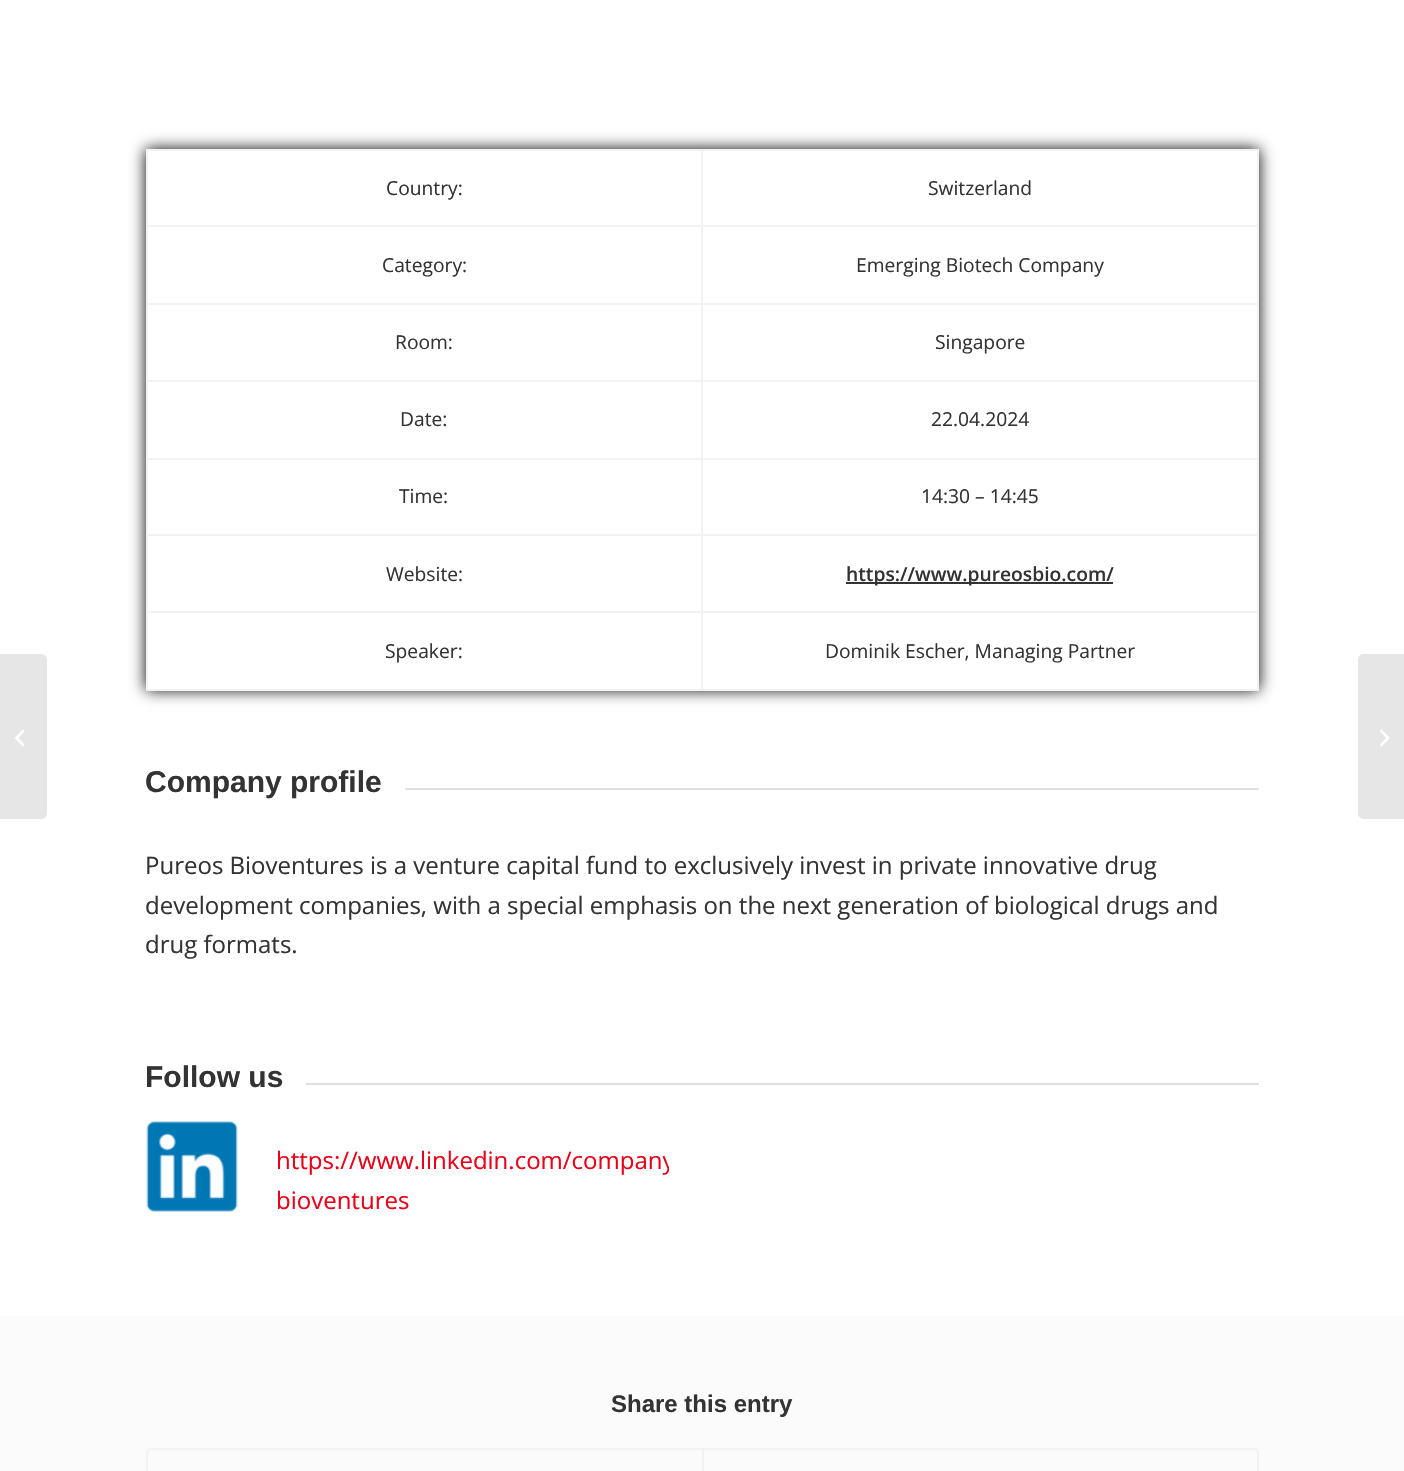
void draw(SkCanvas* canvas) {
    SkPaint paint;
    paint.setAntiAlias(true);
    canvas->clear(0xFFFFFFFF);
    paint.setColor(0xFFE6E6E6);
    canvas->drawPath(SkPathBuilder().moveTo(0, 654).lineTo(41, 654).cubicTo(44.5f, 654, 47, 656.5f, 47, 660).lineTo(47, 813).cubicTo(47, 816.5f, 44.5f, 819, 41, 819).lineTo(0, 819).close().detach(), paint);
    canvas->drawImageRect(SkImages::DeferredFromEncodedData(SkData::MakeFromFileName("img1.png")), SkRect::MakeXYWH(15, 729, 9, 18), SkSamplingOptions());
    paint.setColor(0xFF020202);
    paint.setMaskFilter(SkMaskFilter::MakeBlur(kNormal_SkBlurStyle, 7.5f));
    canvas->drawRect(SkRect::MakeXYWH(146, 149, 1113, 541), paint);
    paint.setMaskFilter(nullptr);
    paint.setColor(0xFFFFFFFF);
    canvas->drawRect(SkRect::MakeXYWH(148, 151, 1109, 538), paint);
    paint.setColor(0xFFF2F2F2);
    canvas->drawRect(SkRect::MakeXYWH(146, 149, 1113, 2), paint);
    canvas->drawRect(SkRect::MakeXYWH(1257, 225, 2, 465), paint);
    canvas->drawRect(SkRect::MakeXYWH(1257, 149, 2, 78), paint);
    canvas->drawRect(SkRect::MakeXYWH(701, 689, 558, 2), paint);
    canvas->drawRect(SkRect::MakeXYWH(701, 611, 2, 79), paint);
    canvas->drawRect(SkRect::MakeXYWH(701, 611, 558, 2), paint);
    canvas->drawRect(SkRect::MakeXYWH(701, 534, 2, 78), paint);
    canvas->drawRect(SkRect::MakeXYWH(701, 534, 558, 2), paint);
    canvas->drawRect(SkRect::MakeXYWH(701, 458, 2, 78), paint);
    canvas->drawRect(SkRect::MakeXYWH(701, 458, 558, 2), paint);
    canvas->drawRect(SkRect::MakeXYWH(701, 380, 2, 79), paint);
    canvas->drawRect(SkRect::MakeXYWH(701, 380, 558, 2), paint);
    canvas->drawRect(SkRect::MakeXYWH(701, 303, 2, 78), paint);
    canvas->drawRect(SkRect::MakeXYWH(701, 303, 558, 2), paint);
    canvas->drawRect(SkRect::MakeXYWH(701, 225, 2, 80), paint);
    canvas->drawRect(SkRect::MakeXYWH(701, 225, 558, 2), paint);
    canvas->drawRect(SkRect::MakeXYWH(701, 149, 2, 78), paint);
    canvas->drawRect(SkRect::MakeXYWH(146, 689, 556, 2), paint);
    canvas->drawRect(SkRect::MakeXYWH(146, 611, 2, 79), paint);
    canvas->drawRect(SkRect::MakeXYWH(146, 611, 556, 2), paint);
    canvas->drawRect(SkRect::MakeXYWH(146, 534, 2, 78), paint);
    canvas->drawRect(SkRect::MakeXYWH(146, 534, 556, 2), paint);
    canvas->drawRect(SkRect::MakeXYWH(146, 458, 2, 78), paint);
    canvas->drawRect(SkRect::MakeXYWH(146, 458, 556, 2), paint);
    canvas->drawRect(SkRect::MakeXYWH(146, 380, 2, 79), paint);
    canvas->drawRect(SkRect::MakeXYWH(146, 380, 556, 2), paint);
    canvas->drawRect(SkRect::MakeXYWH(146, 303, 2, 78), paint);
    canvas->drawRect(SkRect::MakeXYWH(146, 303, 556, 2), paint);
    canvas->drawRect(SkRect::MakeXYWH(146, 225, 2, 80), paint);
    canvas->drawRect(SkRect::MakeXYWH(146, 225, 556, 2), paint);
    canvas->drawRect(SkRect::MakeXYWH(146, 149, 2, 78), paint);
    SkFont font1(fontMgr->matchFamilyStyle("Open Sans", SkFontStyle::Normal()), 19.25f);
    font1.setSubpixel(true);
    paint.setColor(0xFF333333);
    canvas->drawString("Country:", 386, 195, font1, paint);
    canvas->drawString("Switzerland", 928, 195, font1, paint);
    canvas->drawString("Category:", 382, 272, font1, paint);
    canvas->drawString("Emerging Biotech Company", 856, 272, font1, paint);
    canvas->drawString("Room:", 395, 349, font1, paint);
    canvas->drawString("Singapore", 935, 349, font1, paint);
    canvas->drawString("Date:", 400, 426, font1, paint);
    canvas->drawString("22.04.2024", 931, 426, font1, paint);
    canvas->drawString("Time:", 399, 503, font1, paint);
    canvas->drawString("14:30 – 14:45", 921, 503, font1, paint);
    canvas->drawString("Website:", 386, 581, font1, paint);
    canvas->drawRect(SkRect::MakeXYWH(846, 582, 267, 2), paint);
    SkFont font2(fontMgr->matchFamilyStyle("Open Sans", SkFontStyle(600, SkFontStyle::kNormal_Width, SkFontStyle::kUpright_Slant)), 19.25f);
    font2.setSubpixel(true);
    canvas->drawString("https://www.pureosbio.com/", 846, 581, font2, paint);
    canvas->drawString("Speaker:", 385, 658, font1, paint);
    canvas->drawString("Dominik Escher, Managing Partner", 825, 658, font1, paint);
    SkFont font3(fontMgr->matchFamilyStyle("Liberation Sans", SkFontStyle::Bold()), 30);
    font3.setSubpixel(true);
    canvas->drawString("Company profile", 145, 792, font3, paint);
    paint.setColor(0xFFE0E0E0);
    canvas->drawRect(SkRect::MakeXYWH(405, 788, 854, 2), paint);
    SkFont font4(fontMgr->matchFamilyStyle("Open Sans", SkFontStyle::Normal()), 24);
    font4.setSubpixel(true);
    paint.setColor(0xFF333333);
    canvas->drawString("Pureos Bioventures is a venture capital fund to exclusively invest in private innovative drug", 145, 874, font4, paint);
    canvas->drawString("development companies, with a special emphasis on the next generation of biological drugs and", 145, 914, font4, paint);
    canvas->drawString("drug formats.", 145, 953, font4, paint);
    canvas->drawString("Follow us", 145, 1087, font3, paint);
    paint.setColor(0xFFE0E0E0);
    canvas->drawRect(SkRect::MakeXYWH(306, 1083, 953, 2), paint);
    canvas->drawImageRect(SkImages::DeferredFromEncodedData(SkData::MakeFromFileName("img2.png")), SkRect::MakeXYWH(146, 1121, 92, 91), SkSamplingOptions());
    canvas->save();
    canvas->clipRect(SkRect::MakeXYWH(261, 1121, 408, 120));
    paint.setColor(0xFFEA0017);
    canvas->drawString("https://www.linkedin.com/company", 276, 1169, font4, paint);
    canvas->restore();
    canvas->drawString("bioventures", 276, 1209, font4, paint);
    paint.setColor(0xFFFBFBFB);
    canvas->drawRect(SkRect::MakeXYWH(0, 1316, 1404, 155), paint);
    SkFont font5(fontMgr->matchFamilyStyle("Liberation Sans", SkFontStyle::Bold()), 24);
    font5.setSubpixel(true);
    paint.setColor(0xFF333333);
    canvas->drawString("Share this entry", 611, 1412, font5, paint);
    paint.setStyle(SkPaint::kStroke_Style);
    paint.setStrokeWidth(2);
    paint.setColor(0xFFF2F2F2);
    canvas->drawRoundRect(SkRect::MakeXYWH(147, 1449, 1111, 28), 4, 4, paint);
    paint.setStyle(SkPaint::kFill_Style);
    canvas->drawRect(SkRect::MakeXYWH(702, 1449, 2, 22), paint);
    paint.setColor(0xFFE6E6E6);
    canvas->drawPath(SkPathBuilder().moveTo(1364, 654).lineTo(1404, 654).lineTo(1404, 819).lineTo(1364, 819).cubicTo(1360.5f, 819, 1358, 816.5f, 1358, 813).lineTo(1358, 660).cubicTo(1358, 656.5f, 1360.5f, 654, 1364, 654).close().detach(), paint);
    canvas->drawImageRect(SkImages::DeferredFromEncodedData(SkData::MakeFromFileName("img3.png")), SkRect::MakeXYWH(1380, 729, 9, 18), SkSamplingOptions());
}
